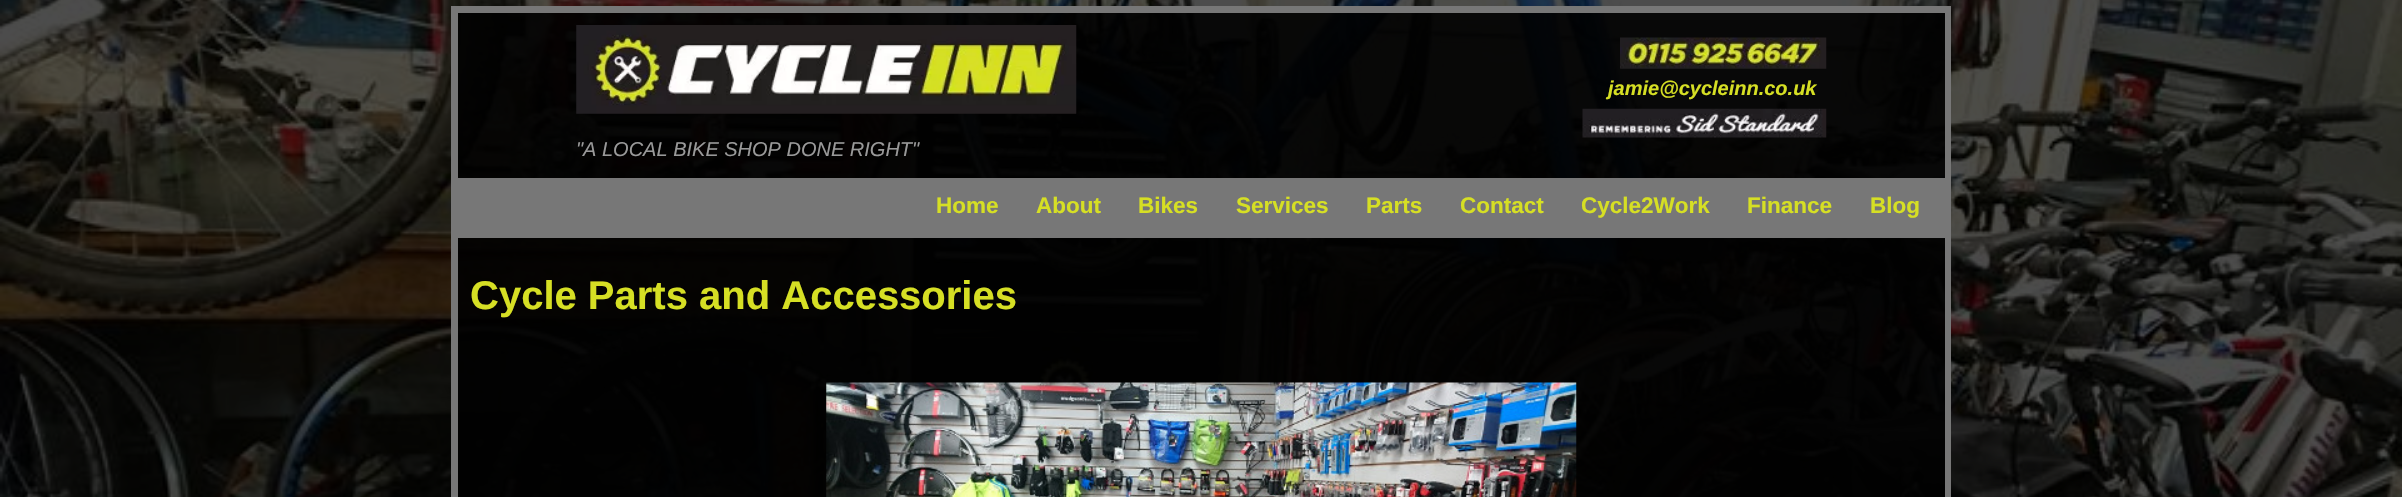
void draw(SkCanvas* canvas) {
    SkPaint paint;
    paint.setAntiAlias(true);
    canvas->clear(0xFFFFFFFF);
    canvas->drawImageRect(SkImages::DeferredFromEncodedData(SkData::MakeFromFileName("img1.png")), SkRect::MakeXYWH(0, 0, 2402, 497), SkSamplingOptions());
    paint.setColor(0xE6000000);
    canvas->drawRect(SkRect::MakeXYWH(458, 13, 1487, 165), paint);
    paint.setColor(0xFF777777);
    canvas->drawRect(SkRect::MakeXYWH(451, 6, 1500, 7), paint);
    canvas->drawRect(SkRect::MakeXYWH(1945, 6, 6, 491), paint);
    canvas->drawRect(SkRect::MakeXYWH(451, 6, 7, 491), paint);
    canvas->drawImageRect(SkImages::DeferredFromEncodedData(SkData::MakeFromFileName("img2.png")), SkRect::MakeXYWH(576, 25, 501, 89), SkSamplingOptions());
    canvas->drawImageRect(SkImages::DeferredFromEncodedData(SkData::MakeFromFileName("img3.png")), SkRect::MakeXYWH(1620, 37, 207, 32), SkSamplingOptions());
    SkFont font1(fontMgr->matchFamilyStyle("Liberation Sans", SkFontStyle::BoldItalic()), 20);
    font1.setSubpixel(true);
    paint.setColor(0xFFD6DF24);
    canvas->drawString("jamie@cycleinn.co.uk", 1608, 95, font1, paint);
    canvas->drawImageRect(SkImages::DeferredFromEncodedData(SkData::MakeFromFileName("img4.png")), SkRect::MakeXYWH(1582, 108, 245, 30), SkSamplingOptions());
    SkFont font2(fontMgr->matchFamilyStyle("Liberation Sans", SkFontStyle::Italic()), 20);
    font2.setSubpixel(true);
    paint.setColor(0xFF999999);
    canvas->drawString("\"A LOCAL BIKE SHOP DONE RIGHT\"", 576, 156, font2, paint);
    paint.setColor(0xFF777777);
    canvas->drawRect(SkRect::MakeXYWH(458, 178, 1487, 60), paint);
    SkFont font3(fontMgr->matchFamilyStyle("Liberation Sans", SkFontStyle::Bold()), 22.5f);
    font3.setSubpixel(true);
    paint.setColor(0xFFD6DF24);
    canvas->drawString("Home", 936, 213, font3, paint);
    canvas->drawString("About", 1036, 213, font3, paint);
    canvas->drawString("Bikes", 1138, 213, font3, paint);
    canvas->drawString("Services", 1236, 213, font3, paint);
    canvas->drawString("Parts", 1366, 213, font3, paint);
    canvas->drawString("Contact", 1460, 213, font3, paint);
    canvas->drawString("Cycle2Work", 1581, 213, font3, paint);
    canvas->drawString("Finance", 1747, 213, font3, paint);
    canvas->drawString("Blog", 1870, 213, font3, paint);
    paint.setColor(0xE6000000);
    canvas->drawRect(SkRect::MakeXYWH(458, 238, 1487, 259), paint);
    SkFont font4(fontMgr->matchFamilyStyle("Liberation Sans", SkFontStyle::Bold()), 40);
    font4.setSubpixel(true);
    paint.setColor(0xFFD6DF24);
    canvas->drawString("Cycle Parts and Accessories", 470, 309, font4, paint);
    canvas->drawImageRect(SkImages::DeferredFromEncodedData(SkData::MakeFromFileName("img5.png")), SkRect::MakeXYWH(826, 382, 751, 115), SkSamplingOptions());
}
